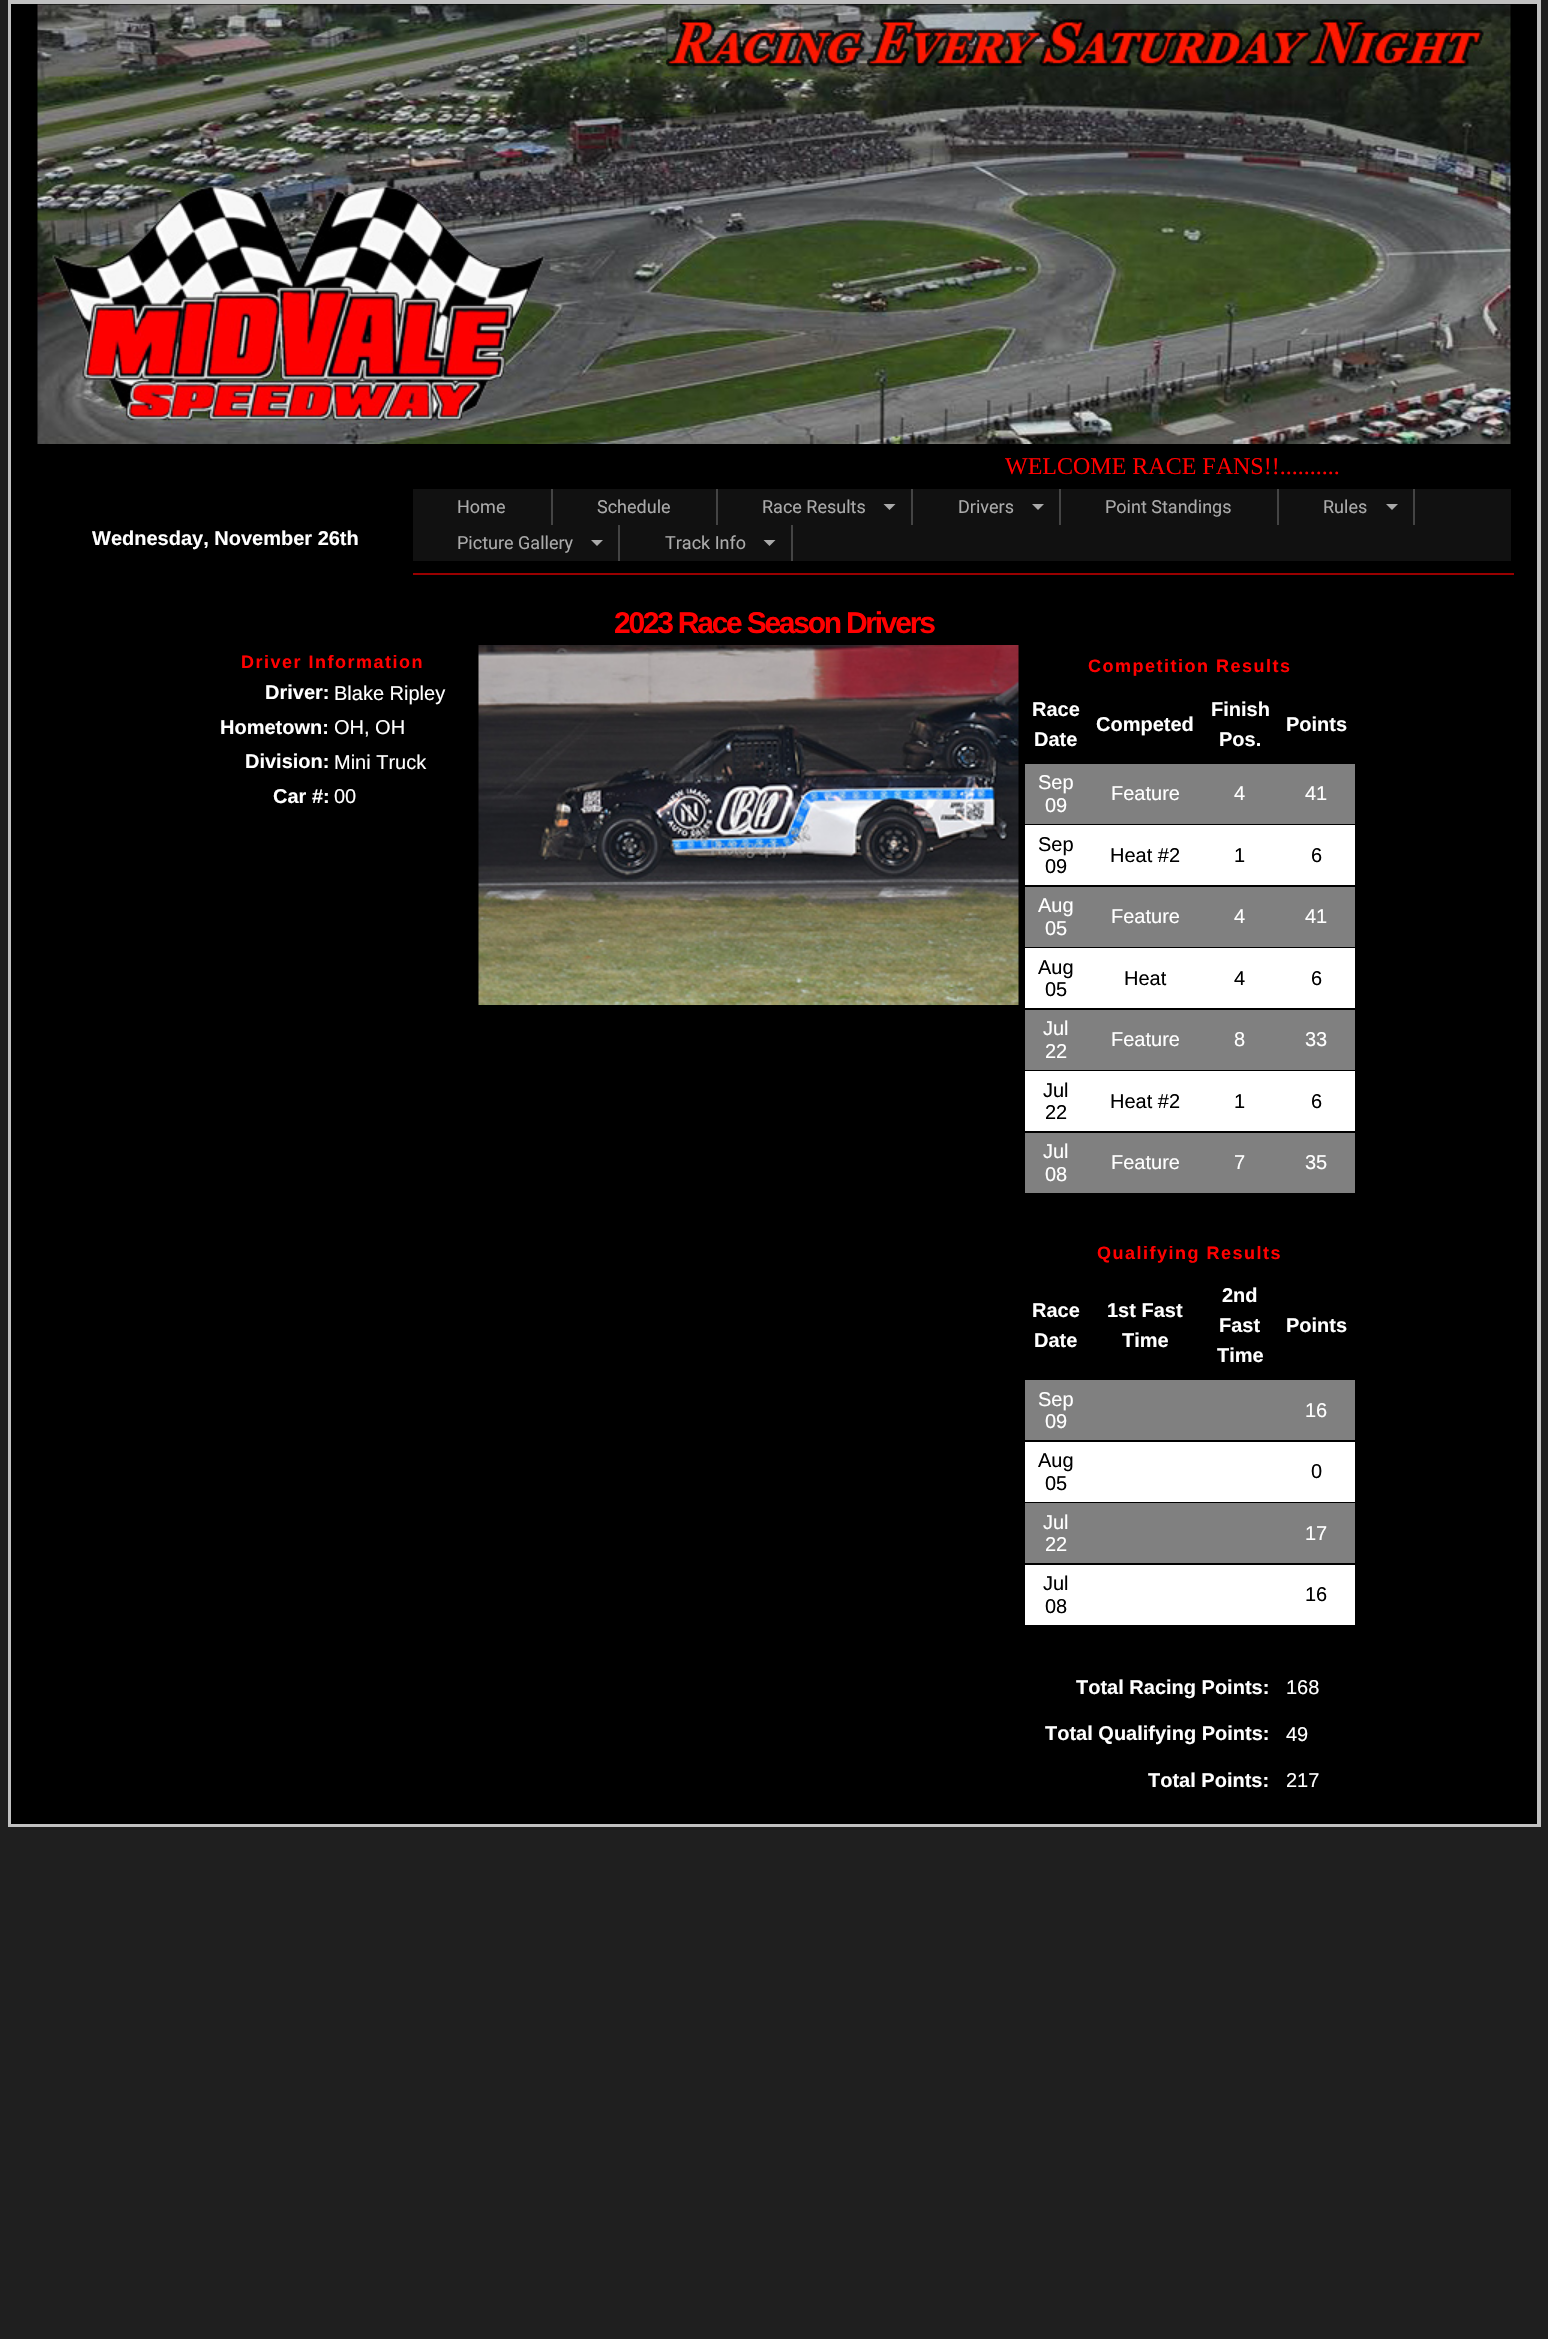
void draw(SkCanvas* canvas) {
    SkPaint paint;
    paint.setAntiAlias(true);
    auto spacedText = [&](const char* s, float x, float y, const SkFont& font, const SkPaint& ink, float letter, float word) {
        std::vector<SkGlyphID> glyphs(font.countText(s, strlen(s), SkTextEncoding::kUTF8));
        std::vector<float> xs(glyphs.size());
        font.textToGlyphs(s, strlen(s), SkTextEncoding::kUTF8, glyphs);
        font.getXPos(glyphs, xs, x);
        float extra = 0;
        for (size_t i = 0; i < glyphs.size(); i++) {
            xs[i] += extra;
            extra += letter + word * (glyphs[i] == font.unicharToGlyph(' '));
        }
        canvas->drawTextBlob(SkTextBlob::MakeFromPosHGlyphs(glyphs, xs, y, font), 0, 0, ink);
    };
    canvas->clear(0xFF1F1F1F);
    paint.setColor(0xFF000000);
    canvas->drawRect(SkRect::MakeXYWH(11, 4, 1526, 1820), paint);
    paint.setStyle(SkPaint::kStroke_Style);
    paint.setStrokeWidth(2);
    paint.setColor(0xFFC0C0C0);
    canvas->drawRect(SkRect::MakeXYWH(9, 1, 1531, 1825), paint);
    canvas->drawRect(SkRect::MakeXYWH(10, 3, 1528, 1822), paint);
    canvas->drawImageRect(SkImages::DeferredFromEncodedData(SkData::MakeFromFileName("img1.png")), SkRect::MakeXYWH(37, 4, 1474, 440), SkSamplingOptions());
    SkFont font1(fontMgr->matchFamilyStyle("Liberation Serif", SkFontStyle::Normal()), 24);
    font1.setSubpixel(true);
    paint.setStyle(SkPaint::kFill_Style);
    paint.setColor(0xFFFF0000);
    canvas->drawString("WELCOME RACE FANS!!..........", 1005, 474, font1, paint);
    SkFont font2(fontMgr->matchFamilyStyle("Liberation Sans", SkFontStyle::Bold()), 20);
    font2.setSubpixel(true);
    paint.setColor(0xFFFFFFFF);
    canvas->drawString("Wednesday, November 26th", 92, 545, font2, paint);
    paint.setColor(0xFF111111);
    canvas->drawRect(SkRect::MakeXYWH(413, 489, 1098, 72), paint);
    paint.setColor(0xFF444444);
    canvas->drawRect(SkRect::MakeXYWH(551, 489, 2, 36), paint);
    SkFont font3(fontMgr->matchFamilyStyle("Roboto", SkFontStyle::Normal()), 18);
    font3.setSubpixel(true);
    paint.setColor(0xFFAAAAAA);
    canvas->drawString("Home", 457, 513, font3, paint);
    paint.setColor(0xFF444444);
    canvas->drawRect(SkRect::MakeXYWH(716, 489, 2, 36), paint);
    paint.setColor(0xFFAAAAAA);
    canvas->drawString("Schedule", 597, 513, font3, paint);
    paint.setColor(0xFF444444);
    canvas->drawRect(SkRect::MakeXYWH(911, 489, 2, 36), paint);
    paint.setColor(0xFFAAAAAA);
    canvas->drawString("Race Results", 762, 513, font3, paint);
    canvas->drawPath(SkPathBuilder().moveTo(883.5f, 504).lineTo(895.5f, 504).lineTo(889.5f, 510).close().detach(), paint);
    paint.setColor(0xFF444444);
    canvas->drawRect(SkRect::MakeXYWH(1059, 489, 2, 36), paint);
    paint.setColor(0xFFAAAAAA);
    canvas->drawString("Drivers", 958, 513, font3, paint);
    canvas->drawPath(SkPathBuilder().moveTo(1032, 504).lineTo(1044, 504).lineTo(1038, 510).close().detach(), paint);
    paint.setColor(0xFF444444);
    canvas->drawRect(SkRect::MakeXYWH(1277, 489, 2, 36), paint);
    paint.setColor(0xFFAAAAAA);
    canvas->drawString("Point Standings", 1105, 513, font3, paint);
    paint.setColor(0xFF444444);
    canvas->drawRect(SkRect::MakeXYWH(1413, 489, 2, 36), paint);
    paint.setColor(0xFFAAAAAA);
    canvas->drawString("Rules", 1323, 513, font3, paint);
    canvas->drawPath(SkPathBuilder().moveTo(1386, 504).lineTo(1398, 504).lineTo(1392, 510).close().detach(), paint);
    paint.setColor(0xFF444444);
    canvas->drawRect(SkRect::MakeXYWH(618, 525, 2, 36), paint);
    paint.setColor(0xFFAAAAAA);
    canvas->drawString("Picture Gallery", 457, 549, font3, paint);
    canvas->drawPath(SkPathBuilder().moveTo(591, 540).lineTo(603, 540).lineTo(597, 546).close().detach(), paint);
    paint.setColor(0xFF444444);
    canvas->drawRect(SkRect::MakeXYWH(791, 525, 2, 36), paint);
    paint.setColor(0xFFAAAAAA);
    canvas->drawString("Track Info", 665, 549, font3, paint);
    canvas->drawPath(SkPathBuilder().moveTo(763.5f, 540).lineTo(775.5f, 540).lineTo(769.5f, 546).close().detach(), paint);
    paint.setColor(0xFF990000);
    canvas->drawRect(SkRect::MakeXYWH(413, 573, 1101, 2), paint);
    SkFont font4(fontMgr->matchFamilyStyle("Liberation Sans", SkFontStyle::Bold()), 30);
    font4.setSubpixel(true);
    paint.setColor(0xFFFF0000);
    spacedText("2023 Race Season Drivers", 614, 633, font4, paint, -2.25f, 0);
    SkFont font5(fontMgr->matchFamilyStyle("Liberation Sans", SkFontStyle::Bold()), 18);
    font5.setSubpixel(true);
    spacedText("Driver Information", 241, 668, font5, paint, 1.5f, 0);
    paint.setColor(0xFFFFFFFF);
    canvas->drawString("Driver:", 265, 699, font2, paint);
    SkFont font6(fontMgr->matchFamilyStyle("Liberation Sans", SkFontStyle::Normal()), 20);
    font6.setSubpixel(true);
    canvas->drawString("Blake Ripley", 334, 700, font6, paint);
    canvas->drawString("Hometown:", 220, 734, font2, paint);
    canvas->drawString("OH, OH", 334, 734, font6, paint);
    canvas->drawString("Division:", 245, 768, font2, paint);
    canvas->drawString("Mini Truck", 334, 769, font6, paint);
    canvas->drawString("Car #:", 273, 803, font2, paint);
    canvas->drawString("00", 334, 803, font6, paint);
    canvas->drawImageRect(SkImages::DeferredFromEncodedData(SkData::MakeFromFileName("img2.png")), SkRect::MakeXYWH(478, 645, 541, 360), SkSamplingOptions());
    paint.setColor(0xFFFF0000);
    spacedText("Competition Results", 1088, 672, font5, paint, 1.5f, 0);
    paint.setColor(0xFFFFFFFF);
    canvas->drawString("Race", 1032, 716, font2, paint);
    canvas->drawString("Date", 1034, 746, font2, paint);
    canvas->drawString("Competed", 1096, 731, font2, paint);
    canvas->drawString("Finish", 1211, 716, font2, paint);
    canvas->drawString("Pos.", 1219, 746, font2, paint);
    canvas->drawString("Points", 1286, 731, font2, paint);
    paint.setColor(0xFF808080);
    canvas->drawRect(SkRect::MakeXYWH(1025, 764, 330, 60), paint);
    paint.setColor(0xFFFFFFFF);
    canvas->drawString("Sep", 1038, 789, font6, paint);
    canvas->drawString("09", 1045, 812, font6, paint);
    canvas->drawString("Feature", 1111, 800, font6, paint);
    canvas->drawString("4", 1234, 800, font6, paint);
    canvas->drawString("41", 1305, 800, font6, paint);
    canvas->drawRect(SkRect::MakeXYWH(1025, 825, 330, 60), paint);
    paint.setColor(0xFF000000);
    canvas->drawString("Sep", 1038, 851, font6, paint);
    canvas->drawString("09", 1045, 873, font6, paint);
    canvas->drawString("Heat #2", 1110, 862, font6, paint);
    canvas->drawString("1", 1234, 862, font6, paint);
    canvas->drawString("6", 1311, 862, font6, paint);
    paint.setColor(0xFF808080);
    canvas->drawRect(SkRect::MakeXYWH(1025, 887, 330, 60), paint);
    paint.setColor(0xFFFFFFFF);
    canvas->drawString("Aug", 1038, 912, font6, paint);
    canvas->drawString("05", 1045, 935, font6, paint);
    canvas->drawString("Feature", 1111, 923, font6, paint);
    canvas->drawString("4", 1234, 923, font6, paint);
    canvas->drawString("41", 1305, 923, font6, paint);
    canvas->drawRect(SkRect::MakeXYWH(1025, 948, 330, 60), paint);
    paint.setColor(0xFF000000);
    canvas->drawString("Aug", 1038, 974, font6, paint);
    canvas->drawString("05", 1045, 996, font6, paint);
    canvas->drawString("Heat", 1124, 985, font6, paint);
    canvas->drawString("4", 1234, 985, font6, paint);
    canvas->drawString("6", 1311, 985, font6, paint);
    paint.setColor(0xFF808080);
    canvas->drawRect(SkRect::MakeXYWH(1025, 1010, 330, 60), paint);
    paint.setColor(0xFFFFFFFF);
    canvas->drawString("Jul", 1043, 1035, font6, paint);
    canvas->drawString("22", 1045, 1058, font6, paint);
    canvas->drawString("Feature", 1111, 1046, font6, paint);
    canvas->drawString("8", 1234, 1046, font6, paint);
    canvas->drawString("33", 1305, 1046, font6, paint);
    canvas->drawRect(SkRect::MakeXYWH(1025, 1071, 330, 60), paint);
    paint.setColor(0xFF000000);
    canvas->drawString("Jul", 1043, 1097, font6, paint);
    canvas->drawString("22", 1045, 1119, font6, paint);
    canvas->drawString("Heat #2", 1110, 1108, font6, paint);
    canvas->drawString("1", 1234, 1108, font6, paint);
    canvas->drawString("6", 1311, 1108, font6, paint);
    paint.setColor(0xFF808080);
    canvas->drawRect(SkRect::MakeXYWH(1025, 1133, 330, 60), paint);
    paint.setColor(0xFFFFFFFF);
    canvas->drawString("Jul", 1043, 1158, font6, paint);
    canvas->drawString("08", 1045, 1181, font6, paint);
    canvas->drawString("Feature", 1111, 1169, font6, paint);
    canvas->drawString("7", 1234, 1169, font6, paint);
    canvas->drawString("35", 1305, 1169, font6, paint);
    paint.setColor(0xFFFF0000);
    spacedText("Qualifying Results", 1097, 1259, font5, paint, 1.5f, 0);
    paint.setColor(0xFFFFFFFF);
    canvas->drawString("Race", 1032, 1317, font2, paint);
    canvas->drawString("Date", 1034, 1347, font2, paint);
    canvas->drawString("1st Fast", 1107, 1317, font2, paint);
    canvas->drawString("Time", 1122, 1347, font2, paint);
    canvas->drawString("2nd", 1222, 1302, font2, paint);
    canvas->drawString("Fast", 1219, 1332, font2, paint);
    canvas->drawString("Time", 1217, 1362, font2, paint);
    canvas->drawString("Points", 1286, 1332, font2, paint);
    paint.setColor(0xFF808080);
    canvas->drawRect(SkRect::MakeXYWH(1025, 1380, 330, 60), paint);
    paint.setColor(0xFFFFFFFF);
    canvas->drawString("Sep", 1038, 1406, font6, paint);
    canvas->drawString("09", 1045, 1428, font6, paint);
    canvas->drawString("16", 1305, 1417, font6, paint);
    canvas->drawRect(SkRect::MakeXYWH(1025, 1442, 330, 60), paint);
    paint.setColor(0xFF000000);
    canvas->drawString("Aug", 1038, 1467, font6, paint);
    canvas->drawString("05", 1045, 1490, font6, paint);
    canvas->drawString("0", 1311, 1478, font6, paint);
    paint.setColor(0xFF808080);
    canvas->drawRect(SkRect::MakeXYWH(1025, 1503, 330, 60), paint);
    paint.setColor(0xFFFFFFFF);
    canvas->drawString("Jul", 1043, 1529, font6, paint);
    canvas->drawString("22", 1045, 1551, font6, paint);
    canvas->drawString("17", 1305, 1540, font6, paint);
    canvas->drawRect(SkRect::MakeXYWH(1025, 1565, 330, 60), paint);
    paint.setColor(0xFF000000);
    canvas->drawString("Jul", 1043, 1590, font6, paint);
    canvas->drawString("08", 1045, 1613, font6, paint);
    canvas->drawString("16", 1305, 1601, font6, paint);
    paint.setColor(0xFFFFFFFF);
    canvas->drawString("Total Racing Points:", 1076, 1694, font2, paint);
    canvas->drawString("168", 1286, 1694, font6, paint);
    canvas->drawString("Total Qualifying Points:", 1045, 1740, font2, paint);
    canvas->drawString("49", 1286, 1741, font6, paint);
    canvas->drawString("Total Points:", 1148, 1787, font2, paint);
    canvas->drawString("217", 1286, 1787, font6, paint);
}
